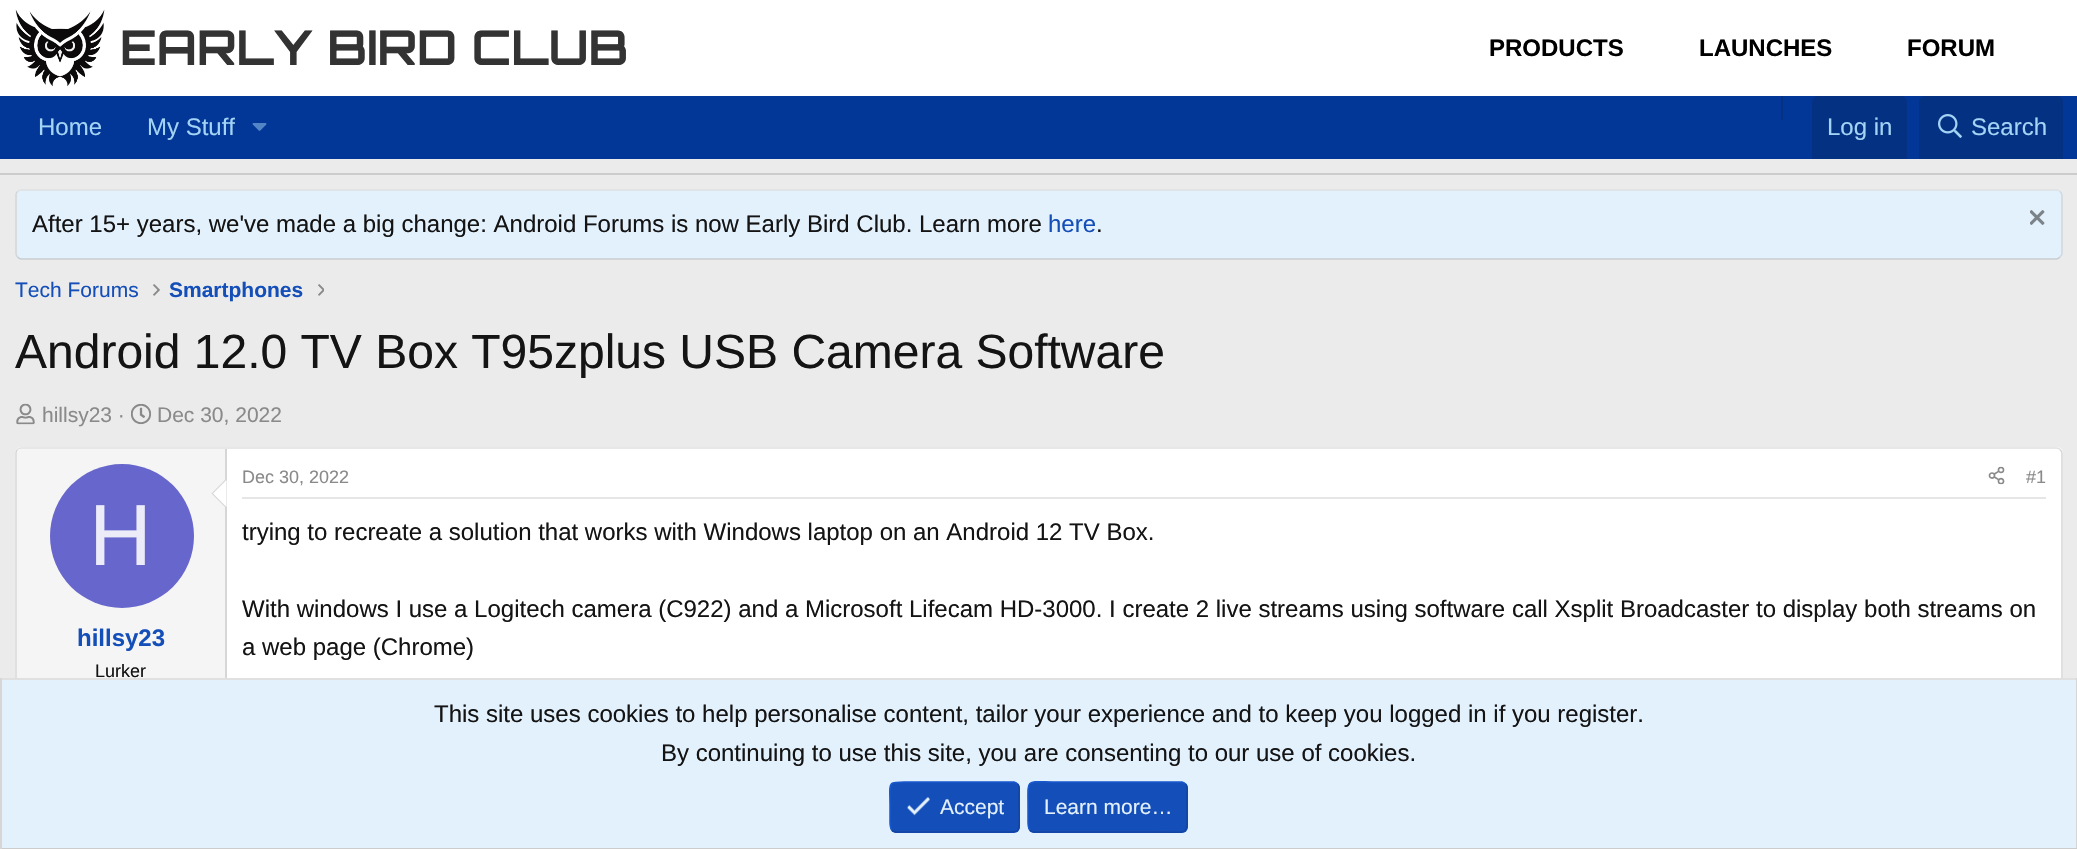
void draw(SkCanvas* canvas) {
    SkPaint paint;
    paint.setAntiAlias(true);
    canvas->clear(0xFFEBEBEB);
    paint.setColor(0xFFFFFFFF);
    canvas->drawRect(SkRect::MakeXYWH(0, 0, 2077, 96), paint);
    canvas->drawImageRect(SkImages::DeferredFromEncodedData(SkData::MakeFromFileName("img1.png")), SkRect::MakeXYWH(15, 9, 90, 78), SkSamplingOptions());
    SkFont font1(fontMgr->matchFamilyStyle("Orbitron", SkFontStyle::Bold()), 48);
    font1.setSubpixel(true);
    paint.setColor(0xFF333333);
    canvas->drawString("EARLY BIRD CLUB", 120, 65, font1, paint);
    SkFont font2(fontMgr->matchFamilyStyle("Liberation Sans", SkFontStyle::Bold()), 24);
    font2.setSubpixel(true);
    paint.setColor(0xFF000000);
    canvas->drawString("PRODUCTS", 1489, 56, font2, paint);
    canvas->drawString("LAUNCHES", 1699, 56, font2, paint);
    canvas->drawString("FORUM", 1907, 56, font2, paint);
    paint.setColor(0xFF023697);
    canvas->drawRect(SkRect::MakeXYWH(0, 96, 2077, 63), paint);
    SkFont font3(fontMgr->matchFamilyStyle("Liberation Sans", SkFontStyle::Normal()), 24);
    font3.setSubpixel(true);
    paint.setColor(0xFFA3D4F5);
    canvas->drawString("Home", 38, 135, font3, paint);
    canvas->drawString("My Stuff", 147, 135, font3, paint);
    canvas->drawImageRect(SkImages::DeferredFromEncodedData(SkData::MakeFromFileName("img2.png")), SkRect::MakeXYWH(252, 123, 15, 8), SkSamplingOptions());
    paint.setColor(0xFF053183);
    canvas->drawRect(SkRect::MakeXYWH(1781, 96, 2, 24), paint);
    canvas->drawPath(SkPathBuilder().moveTo(1818, 96).lineTo(1901, 96).cubicTo(1904.5f, 96, 1907, 98.5f, 1907, 102).lineTo(1907, 159).lineTo(1812, 159).lineTo(1812, 102).cubicTo(1812, 98.5f, 1814.5f, 96, 1818, 96).close().detach(), paint);
    paint.setColor(0xFFA3D4F5);
    canvas->drawString("Log in", 1827, 135, font3, paint);
    paint.setColor(0xFF053183);
    canvas->drawPath(SkPathBuilder().moveTo(1925, 96).lineTo(2057, 96).cubicTo(2060.5f, 96, 2063, 98.5f, 2063, 102).lineTo(2063, 159).lineTo(1919, 159).lineTo(1919, 102).cubicTo(1919, 98.5f, 1921.5f, 96, 1925, 96).close().detach(), paint);
    canvas->drawImageRect(SkImages::DeferredFromEncodedData(SkData::MakeFromFileName("img3.png")), SkRect::MakeXYWH(1938, 114, 24, 24), SkSamplingOptions());
    paint.setColor(0xFFA3D4F5);
    canvas->drawString("Search", 1971, 135, font3, paint);
    paint.setColor(0xFFCCCCCC);
    canvas->drawRect(SkRect::MakeXYWH(0, 173, 2077, 2), paint);
    paint.setColor(0xFFE3F1FD);
    canvas->drawRoundRect(SkRect::MakeXYWH(15, 189, 2048, 71), 6, 6, paint);
    paint.setStyle(SkPaint::kStroke_Style);
    paint.setStrokeWidth(1.5f);
    paint.setColor(0xFFE0E0E0);
    canvas->drawPath(SkPathBuilder().moveTo(17.5f, 191.5f).cubicTo(18.5f, 190.5f, 19.5f, 190, 21, 190).lineTo(2056.5f, 190).cubicTo(2058, 190, 2059, 190.5f, 2060, 191.5f).detach(), paint);
    paint.setColor(0xFFD6D6D6);
    canvas->drawPath(SkPathBuilder().moveTo(2060, 191.5f).cubicTo(2061, 192.5f, 2062, 193.5f, 2062, 195).lineTo(2062, 253.5f).cubicTo(2062, 255, 2061, 256, 2060, 257).detach(), paint);
    paint.setColor(0xFFCCCCCC);
    canvas->drawPath(SkPathBuilder().moveTo(2060, 257).cubicTo(2059, 258, 2058, 259, 2056.5f, 259).lineTo(21, 259).cubicTo(19.5f, 259, 18.5f, 258, 17.5f, 257).detach(), paint);
    paint.setColor(0xFFD6D6D6);
    canvas->drawPath(SkPathBuilder().moveTo(17.5f, 257).cubicTo(16.5f, 256, 16, 255, 16, 253.5f).lineTo(16, 195).cubicTo(16, 193.5f, 16.5f, 192.5f, 17.5f, 191.5f).detach(), paint);
    paint.setStyle(SkPaint::kFill_Style);
    paint.setColor(0xFF141414);
    canvas->drawString("After 15+ years, we've made a big change: Android Forums is now Early Bird Club. Learn more", 32, 232, font3, paint);
    paint.setColor(0xFF144EB8);
    canvas->drawString("here", 1048, 232, font3, paint);
    paint.setColor(0xFF141414);
    canvas->drawString(".", 1096, 232, font3, paint);
    canvas->drawImageRect(SkImages::DeferredFromEncodedData(SkData::MakeFromFileName("img4.png")), SkRect::MakeXYWH(2030, 210, 15, 15), SkSamplingOptions());
    SkFont font4(fontMgr->matchFamilyStyle("Liberation Sans", SkFontStyle::Normal()), 21);
    font4.setSubpixel(true);
    paint.setColor(0xFF144EB8);
    canvas->drawString("Tech Forums", 15, 297, font4, paint);
    canvas->drawImageRect(SkImages::DeferredFromEncodedData(SkData::MakeFromFileName("img5.png")), SkRect::MakeXYWH(153, 284, 7, 12), SkSamplingOptions());
    SkFont font5(fontMgr->matchFamilyStyle("Liberation Sans", SkFontStyle::Bold()), 21);
    font5.setSubpixel(true);
    canvas->drawString("Smartphones", 169, 297, font5, paint);
    canvas->drawImageRect(SkImages::DeferredFromEncodedData(SkData::MakeFromFileName("img6.png")), SkRect::MakeXYWH(318, 284, 6, 12), SkSamplingOptions());
    SkFont font6(fontMgr->matchFamilyStyle("Liberation Sans", SkFontStyle::Normal()), 48);
    font6.setSubpixel(true);
    paint.setColor(0xFF141414);
    canvas->drawString("Android 12.0 TV Box T95zplus USB Camera Software", 15, 368, font6, paint);
    canvas->drawImageRect(SkImages::DeferredFromEncodedData(SkData::MakeFromFileName("img7.png")), SkRect::MakeXYWH(16, 403, 19, 22), SkSamplingOptions());
    paint.setColor(0xFF8A8A8A);
    canvas->drawString("hillsy23 ·", 42, 422, font4, paint);
    canvas->drawImageRect(SkImages::DeferredFromEncodedData(SkData::MakeFromFileName("img8.png")), SkRect::MakeXYWH(131, 403, 20, 22), SkSamplingOptions());
    canvas->drawString("Dec 30, 2022", 157, 422, font4, paint);
    paint.setColor(0xFFFFFFFF);
    canvas->drawRoundRect(SkRect::MakeXYWH(15, 447, 2048, 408), 6, 6, paint);
    paint.setStyle(SkPaint::kStroke_Style);
    paint.setColor(0xFFE0E0E0);
    canvas->drawPath(SkPathBuilder().moveTo(17.5f, 449.5f).cubicTo(18.5f, 448.5f, 19.5f, 448, 21, 448).lineTo(2056.5f, 448).cubicTo(2058, 448, 2059, 448.5f, 2060, 449.5f).detach(), paint);
    paint.setColor(0xFFD6D6D6);
    canvas->drawPath(SkPathBuilder().moveTo(2060, 449.5f).cubicTo(2061, 450.5f, 2062, 451.5f, 2062, 453).lineTo(2062, 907.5f).cubicTo(2062, 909, 2061, 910, 2060, 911).detach(), paint);
    canvas->drawPath(SkPathBuilder().moveTo(17.5f, 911).cubicTo(16.5f, 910, 16, 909, 16, 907.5f).lineTo(16, 453).cubicTo(16, 451.5f, 16.5f, 450.5f, 17.5f, 449.5f).detach(), paint);
    paint.setStyle(SkPaint::kFill_Style);
    paint.setColor(0xFFF5F5F5);
    canvas->drawPath(SkPathBuilder().moveTo(22, 449).lineTo(227, 449).lineTo(227, 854).lineTo(22, 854).cubicTo(19, 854, 17, 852, 17, 849).lineTo(17, 454).cubicTo(17, 451, 19, 449, 22, 449).close().detach(), paint);
    paint.setColor(0xFFD6D6D6);
    canvas->drawRect(SkRect::MakeXYWH(225, 449, 2, 229), paint);
    canvas->drawPath(SkPathBuilder().moveTo(226.5f, 478.5f).lineTo(226.5f, 508.5f).lineTo(211.5f, 493.5f).close().detach(), paint);
    paint.setColor(0xFFFFFFFF);
    canvas->drawPath(SkPathBuilder().moveTo(226.5f, 480).lineTo(226.5f, 507).lineTo(213, 493.5f).close().detach(), paint);
    paint.setColor(0xFF6666CC);
    canvas->drawCircle(122, 536, 72, paint);
    SkFont font7(fontMgr->matchFamilyStyle("Liberation Sans", SkFontStyle::Normal()), 87);
    font7.setSubpixel(true);
    paint.setColor(0xFFECECF9);
    canvas->drawString("H", 89, 565, font7, paint);
    paint.setColor(0xFF144EB8);
    canvas->drawString("hillsy23", 77, 646, font2, paint);
    SkFont font8(fontMgr->matchFamilyStyle("Liberation Sans", SkFontStyle::Normal()), 18);
    font8.setSubpixel(true);
    paint.setColor(0xFF141414);
    canvas->drawString("Lurker", 95, 677, font8, paint);
    paint.setColor(0xFFE6E6E6);
    canvas->drawRect(SkRect::MakeXYWH(242, 497, 1804, 2), paint);
    paint.setColor(0xFF8A8A8A);
    canvas->drawString("Dec 30, 2022", 242, 483, font8, paint);
    canvas->drawImageRect(SkImages::DeferredFromEncodedData(SkData::MakeFromFileName("img9.png")), SkRect::MakeXYWH(1988, 466, 17, 19), SkSamplingOptions());
    canvas->drawString("#1", 2026, 483, font8, paint);
    paint.setColor(0xFF141414);
    canvas->drawString("trying to recreate a solution that works with Windows laptop on an Android 12 TV Box.", 242, 540, font3, paint);
    canvas->drawString("With windows I use a Logitech camera (C922) and a Microsoft Lifecam HD-3000. I create 2 live streams using software call Xsplit Broadcaster to display both streams on", 242, 617, font3, paint);
    canvas->drawString("a web page (Chrome)", 242, 655, font3, paint);
    paint.setColor(0xFFE3F1FD);
    canvas->drawRect(SkRect::MakeXYWH(2, 680, 2074, 168), paint);
    paint.setColor(0xFFE0E0E0);
    canvas->drawRect(SkRect::MakeXYWH(0, 678, 2077, 2), paint);
    paint.setColor(0xFFD6D6D6);
    canvas->drawRect(SkRect::MakeXYWH(2076, 678, 1, 171), paint);
    paint.setColor(0xFFCCCCCC);
    canvas->drawRect(SkRect::MakeXYWH(0, 848, 2077, 1), paint);
    paint.setColor(0xFFD6D6D6);
    canvas->drawRect(SkRect::MakeXYWH(0, 678, 2, 171), paint);
    paint.setColor(0xFF141414);
    canvas->drawString("This site uses cookies to help personalise content, tailor your experience and to keep you logged in if you register.", 434, 722, font3, paint);
    canvas->drawString("By continuing to use this site, you are consenting to our use of cookies.", 661, 761, font3, paint);
    paint.setColor(0xFF144EB8);
    canvas->drawRoundRect(SkRect::MakeXYWH(890, 782, 130, 51), 6, 6, paint);
    paint.setStyle(SkPaint::kStroke_Style);
    paint.setColor(0xFF1244A1);
    canvas->drawPath(SkPathBuilder().moveTo(1017.5f, 784).cubicTo(1020, 786.5f, 1019, 791, 1019, 794).lineTo(1019, 807).cubicTo(1019, 835.5f, 1024, 832, 994, 832).lineTo(895.5f, 832).cubicTo(894, 831.5f, 893, 831, 892, 830).detach(), paint);
    paint.setColor(0xFF1757CF);
    canvas->drawPath(SkPathBuilder().moveTo(892, 830).cubicTo(889.5f, 827.5f, 890, 823, 890, 820).lineTo(890, 807).cubicTo(890, 778.5f, 885.5f, 782, 915, 782).lineTo(1014, 782).cubicTo(1015.5f, 782.5f, 1016.5f, 783, 1017.5f, 784).detach(), paint);
    canvas->drawImageRect(SkImages::DeferredFromEncodedData(SkData::MakeFromFileName("img10.png")), SkRect::MakeXYWH(907, 797, 23, 19), SkSamplingOptions());
    paint.setStyle(SkPaint::kFill_Style);
    paint.setColor(0xFFE3F1FD);
    canvas->drawString("Accept", 940, 814, font4, paint);
    paint.setColor(0xFF144EB8);
    canvas->drawRoundRect(SkRect::MakeXYWH(1028, 782, 160, 51), 6, 6, paint);
    paint.setStyle(SkPaint::kStroke_Style);
    paint.setColor(0xFF1244A1);
    canvas->drawPath(SkPathBuilder().moveTo(1185.5f, 784).cubicTo(1188, 786.5f, 1187, 791, 1187, 794).lineTo(1187, 807).cubicTo(1187, 837.5f, 1191, 832, 1157, 832).lineTo(1033.5f, 832).cubicTo(1032, 831.5f, 1031, 831, 1030, 830).detach(), paint);
    paint.setColor(0xFF1757CF);
    canvas->drawPath(SkPathBuilder().moveTo(1030, 830).cubicTo(1027.5f, 827.5f, 1028, 823, 1028, 820).lineTo(1028, 807).cubicTo(1028, 776.5f, 1024.5f, 782, 1058, 782).lineTo(1182, 782).cubicTo(1183.5f, 782.5f, 1184.5f, 783, 1185.5f, 784).detach(), paint);
    paint.setStyle(SkPaint::kFill_Style);
    paint.setColor(0xFFE3F1FD);
    canvas->drawString("Learn more…", 1044, 814, font4, paint);
}
